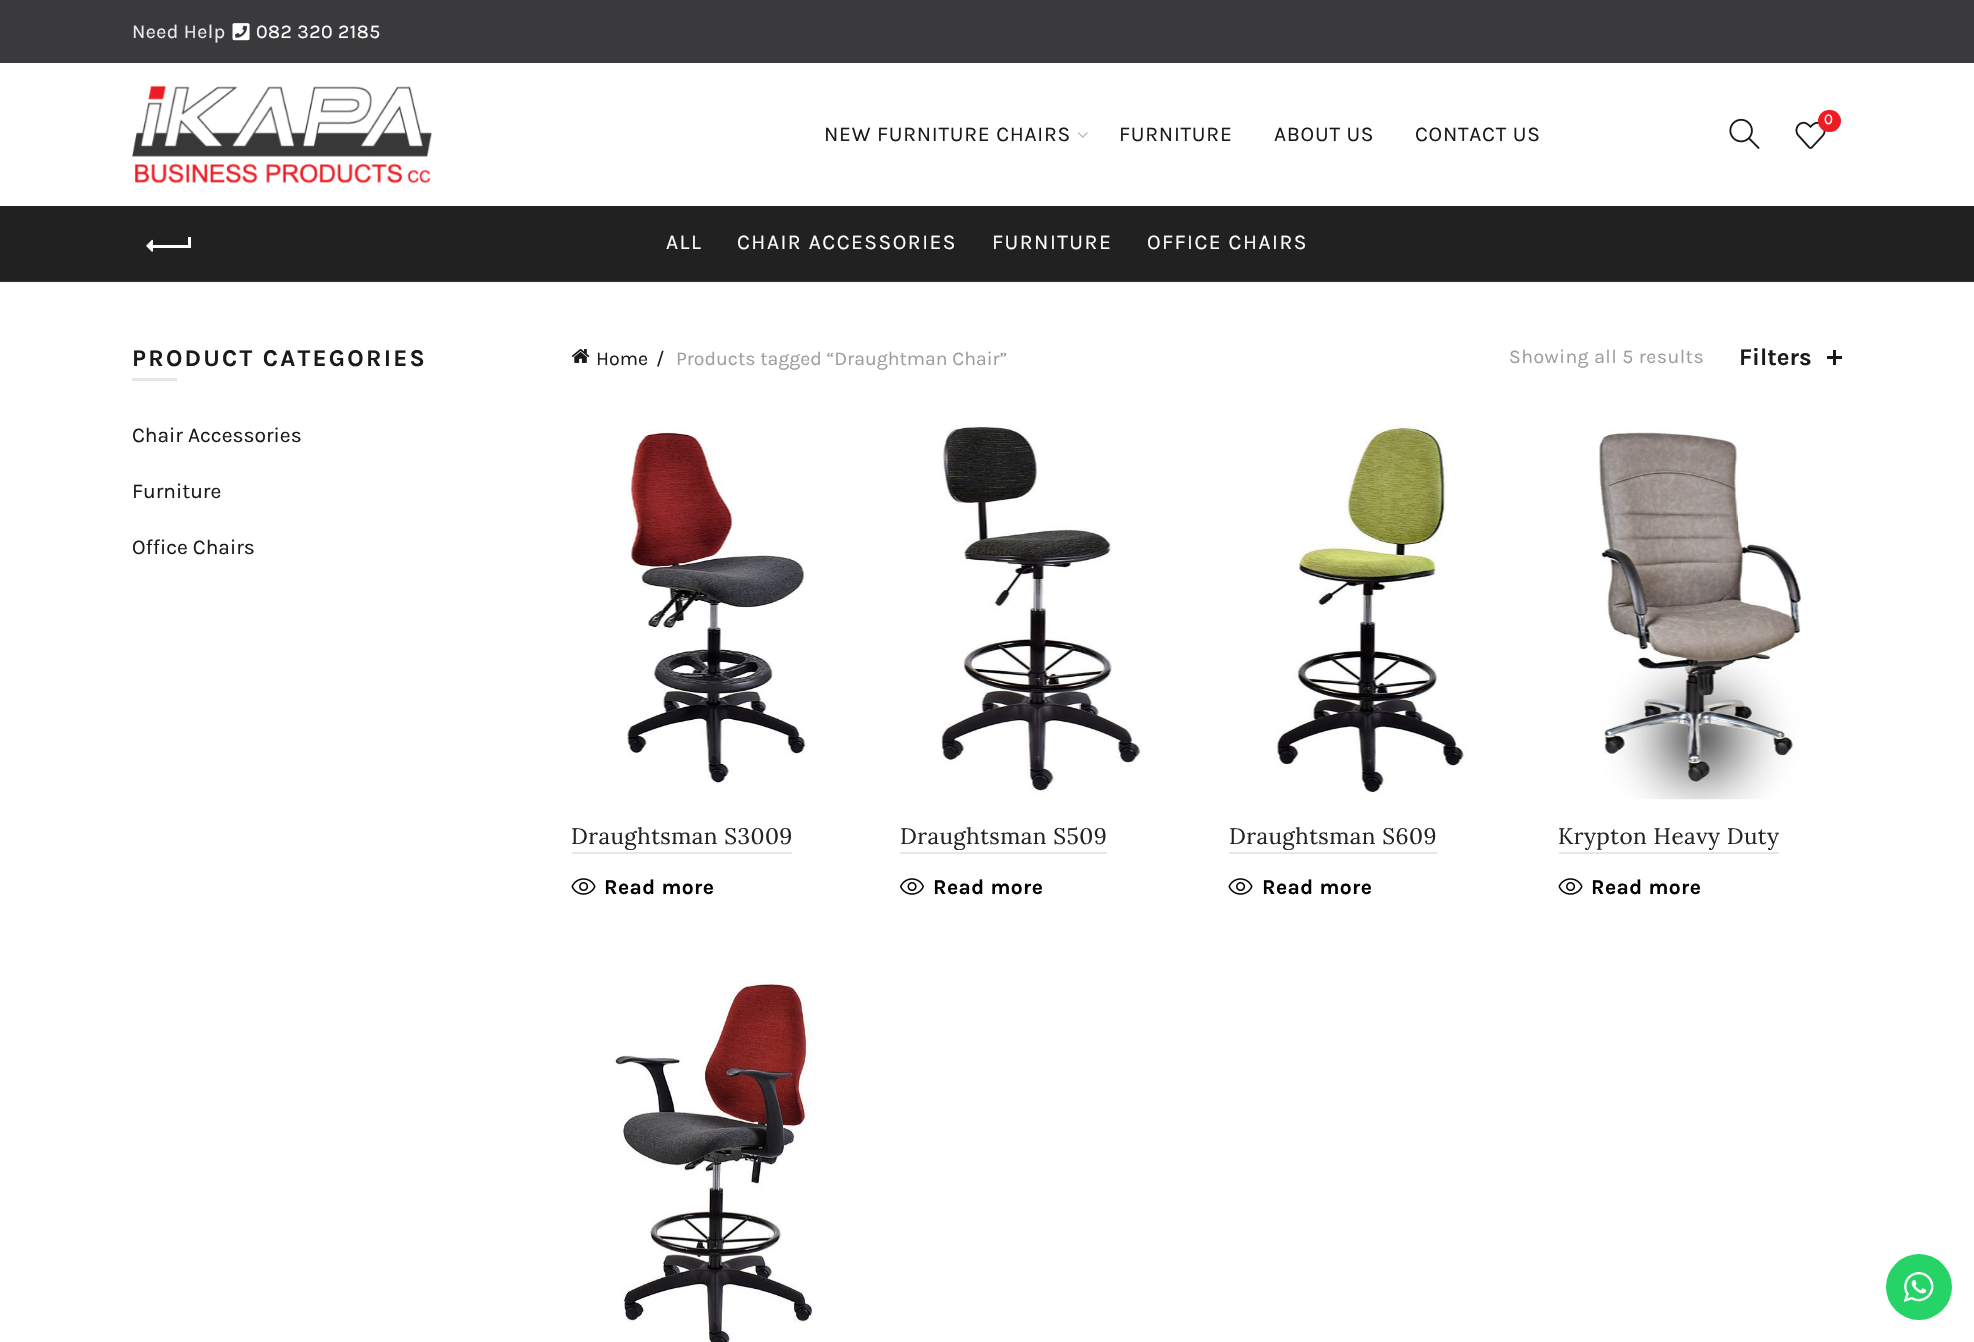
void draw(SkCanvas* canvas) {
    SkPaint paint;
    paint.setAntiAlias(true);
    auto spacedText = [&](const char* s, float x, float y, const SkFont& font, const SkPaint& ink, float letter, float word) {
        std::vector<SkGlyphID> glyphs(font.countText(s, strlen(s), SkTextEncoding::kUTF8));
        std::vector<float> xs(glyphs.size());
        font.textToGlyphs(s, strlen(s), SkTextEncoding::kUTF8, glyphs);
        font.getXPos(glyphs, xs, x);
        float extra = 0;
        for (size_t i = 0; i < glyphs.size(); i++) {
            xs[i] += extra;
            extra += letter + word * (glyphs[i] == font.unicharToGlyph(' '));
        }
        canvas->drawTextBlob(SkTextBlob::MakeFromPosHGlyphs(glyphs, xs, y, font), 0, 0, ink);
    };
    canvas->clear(0xFFFFFFFF);
    paint.setColor(0xFFF2F2F2);
    canvas->drawRect(SkRect::MakeXYWH(0, 282, 1974, 1), paint);
    paint.setColor(0xFF3A3A3C);
    canvas->drawRect(SkRect::MakeXYWH(0, 0, 1974, 63), paint);
    SkFont font1(fontMgr->matchFamilyStyle("Karla", SkFontStyle::Normal()), 19.5f);
    font1.setSubpixel(true);
    paint.setColor(0xFFEBEBEC);
    spacedText("Need Help", 132, 38, font1, paint, 0.45f, 0);
    canvas->drawImageRect(SkImages::DeferredFromEncodedData(SkData::MakeFromFileName("img1.png")), SkRect::MakeXYWH(232, 23, 18, 18), SkSamplingOptions());
    paint.setColor(0xFFFFFFFF);
    spacedText("082 320 2185", 256, 38, font1, paint, 0.45f, 0);
    canvas->drawImageRect(SkImages::DeferredFromEncodedData(SkData::MakeFromFileName("img2.png")), SkRect::MakeXYWH(132, 86, 300, 98), SkSamplingOptions());
    canvas->drawImageRect(SkImages::DeferredFromEncodedData(SkData::MakeFromFileName("img3.png")), SkRect::MakeXYWH(1729, 118, 31, 31), SkSamplingOptions());
    canvas->drawImageRect(SkImages::DeferredFromEncodedData(SkData::MakeFromFileName("img4.png")), SkRect::MakeXYWH(1795, 121, 31, 28), SkSamplingOptions());
    paint.setColor(0xFFED1B24);
    canvas->drawRoundRect(SkRect::MakeXYWH(1818, 110, 23, 22), 11, 11, paint);
    SkFont font2(fontMgr->matchFamilyStyle("Karla", SkFontStyle::Normal()), 15);
    font2.setSubpixel(true);
    paint.setColor(0xFFFFFFFF);
    canvas->drawString("0", 1824, 124, font2, paint);
    SkFont font3(fontMgr->matchFamilyStyle("Karla", SkFontStyle::Normal()), 21);
    font3.setSubpixel(true);
    paint.setColor(0xFF1B1919);
    spacedText("NEW FURNITURE CHAIRS", 824, 141, font3, paint, 0.75f, 0);
    canvas->drawImageRect(SkImages::DeferredFromEncodedData(SkData::MakeFromFileName("img5.png")), SkRect::MakeXYWH(1078, 132, 10, 6), SkSamplingOptions());
    spacedText("FURNITURE", 1119, 141, font3, paint, 0.75f, 0);
    spacedText("ABOUT US", 1274, 141, font3, paint, 0.75f, 0);
    spacedText("CONTACT US", 1415, 141, font3, paint, 0.75f, 0);
    paint.setColor(0xFF212121);
    canvas->drawRect(SkRect::MakeXYWH(0, 206, 1974, 75), paint);
    paint.setColor(0xFF353535);
    canvas->drawRect(SkRect::MakeXYWH(0, 281, 1974, 1), paint);
    paint.setColor(0xFFFFFFFF);
    canvas->drawRect(SkRect::MakeXYWH(152, 245, 37, 3), paint);
    canvas->drawImageRect(SkImages::DeferredFromEncodedData(SkData::MakeFromFileName("img6.png")), SkRect::MakeXYWH(146, 239, 7, 13), SkSamplingOptions());
    canvas->drawRect(SkRect::MakeXYWH(188, 237, 3, 11), paint);
    spacedText("ALL", 666, 249, font3, paint, 1.5f, 0);
    spacedText("CHAIR ACCESSORIES", 737, 249, font3, paint, 1.5f, 0);
    spacedText("FURNITURE", 992, 249, font3, paint, 1.5f, 0);
    spacedText("OFFICE CHAIRS", 1147, 249, font3, paint, 1.5f, 0);
    SkFont font4(fontMgr->matchFamilyStyle("Karla", SkFontStyle::Bold()), 24);
    font4.setSubpixel(true);
    paint.setColor(0xFF1B1919);
    spacedText("PRODUCT CATEGORIES", 132, 366, font4, paint, 2.25f, 0);
    paint.setColor(0xFFE6E6E6);
    canvas->drawRect(SkRect::MakeXYWH(132, 378, 45, 3), paint);
    paint.setColor(0xFF1B1919);
    canvas->drawString("Chair Accessories", 132, 442, font3, paint);
    canvas->drawString("Furniture", 132, 498, font3, paint);
    canvas->drawString("Office Chairs", 132, 554, font3, paint);
    canvas->drawImageRect(SkImages::DeferredFromEncodedData(SkData::MakeFromFileName("img7.png")), SkRect::MakeXYWH(571, 349, 19, 14), SkSamplingOptions());
    canvas->drawString("Home", 596, 365, font1, paint);
    canvas->drawString("/", 656, 365, font1, paint);
    paint.setColor(0xFF9E9E9E);
    canvas->drawString("Products tagged “Draughtman Chair”", 676, 365, font1, paint);
    spacedText("Showing all 5 results", 1509, 363, font1, paint, 0.45f, 0);
    paint.setColor(0xFF1B1919);
    canvas->drawString("Filters", 1739, 365, font4, paint);
    canvas->drawRect(SkRect::MakeXYWH(1833, 350, 3, 15), paint);
    canvas->drawRect(SkRect::MakeXYWH(1827, 356, 15, 3), paint);
    canvas->drawImageRect(SkImages::DeferredFromEncodedData(SkData::MakeFromFileName("img8.png")), SkRect::MakeXYWH(627, 430, 181, 354), SkSamplingOptions());
    SkFont font5(fontMgr->matchFamilyStyle("Lora", SkFontStyle::Normal()), 22.5f);
    font5.setSubpixel(true);
    paint.setColor(0xFF252222);
    spacedText("Draughtsman S3009", 571, 844, font5, paint, 0.45f, 0);
    paint.setColor(0xFFE6E6E6);
    canvas->drawRect(SkRect::MakeXYWH(572, 852, 220, 2), paint);
    canvas->drawImageRect(SkImages::DeferredFromEncodedData(SkData::MakeFromFileName("img9.png")), SkRect::MakeXYWH(571, 878, 25, 17), SkSamplingOptions());
    SkFont font6(fontMgr->matchFamilyStyle("Karla", SkFontStyle::Bold()), 21);
    font6.setSubpixel(true);
    paint.setColor(0xFF000000);
    spacedText("Read more", 604, 894, font6, paint, 0.45f, 0);
    canvas->drawImageRect(SkImages::DeferredFromEncodedData(SkData::MakeFromFileName("img10.png")), SkRect::MakeXYWH(940, 424, 202, 370), SkSamplingOptions());
    paint.setColor(0xFF252222);
    spacedText("Draughtsman S509", 900, 844, font5, paint, 0.45f, 0);
    paint.setColor(0xFFE6E6E6);
    canvas->drawRect(SkRect::MakeXYWH(900, 852, 207, 2), paint);
    canvas->drawImageRect(SkImages::DeferredFromEncodedData(SkData::MakeFromFileName("img11.png")), SkRect::MakeXYWH(900, 878, 24, 17), SkSamplingOptions());
    paint.setColor(0xFF000000);
    spacedText("Read more", 933, 894, font6, paint, 0.45f, 0);
    canvas->drawImageRect(SkImages::DeferredFromEncodedData(SkData::MakeFromFileName("img12.png")), SkRect::MakeXYWH(1274, 420, 192, 374), SkSamplingOptions());
    paint.setColor(0xFF252222);
    spacedText("Draughtsman S609", 1229, 844, font5, paint, 0.45f, 0);
    paint.setColor(0xFFE6E6E6);
    canvas->drawRect(SkRect::MakeXYWH(1229, 852, 208, 2), paint);
    canvas->drawImageRect(SkImages::DeferredFromEncodedData(SkData::MakeFromFileName("img9.png")), SkRect::MakeXYWH(1228, 878, 25, 17), SkSamplingOptions());
    paint.setColor(0xFF000000);
    spacedText("Read more", 1262, 894, font6, paint, 0.45f, 0);
    canvas->drawImageRect(SkImages::DeferredFromEncodedData(SkData::MakeFromFileName("img13.png")), SkRect::MakeXYWH(1599, 430, 203, 370), SkSamplingOptions());
    paint.setColor(0xFF252222);
    spacedText("Krypton Heavy Duty", 1558, 844, font5, paint, 0.45f, 0);
    paint.setColor(0xFFE6E6E6);
    canvas->drawRect(SkRect::MakeXYWH(1559, 852, 220, 2), paint);
    canvas->drawImageRect(SkImages::DeferredFromEncodedData(SkData::MakeFromFileName("img9.png")), SkRect::MakeXYWH(1558, 878, 25, 17), SkSamplingOptions());
    paint.setColor(0xFF000000);
    spacedText("Read more", 1591, 894, font6, paint, 0.45f, 0);
    canvas->drawImageRect(SkImages::DeferredFromEncodedData(SkData::MakeFromFileName("img14.png")), SkRect::MakeXYWH(613, 980, 201, 362), SkSamplingOptions());
    paint.setColor(0xFF25D366);
    canvas->drawCircle(1919, 1287, 33, paint);
    canvas->drawImageRect(SkImages::DeferredFromEncodedData(SkData::MakeFromFileName("img15.png")), SkRect::MakeXYWH(1904, 1272, 30, 30), SkSamplingOptions());
}
